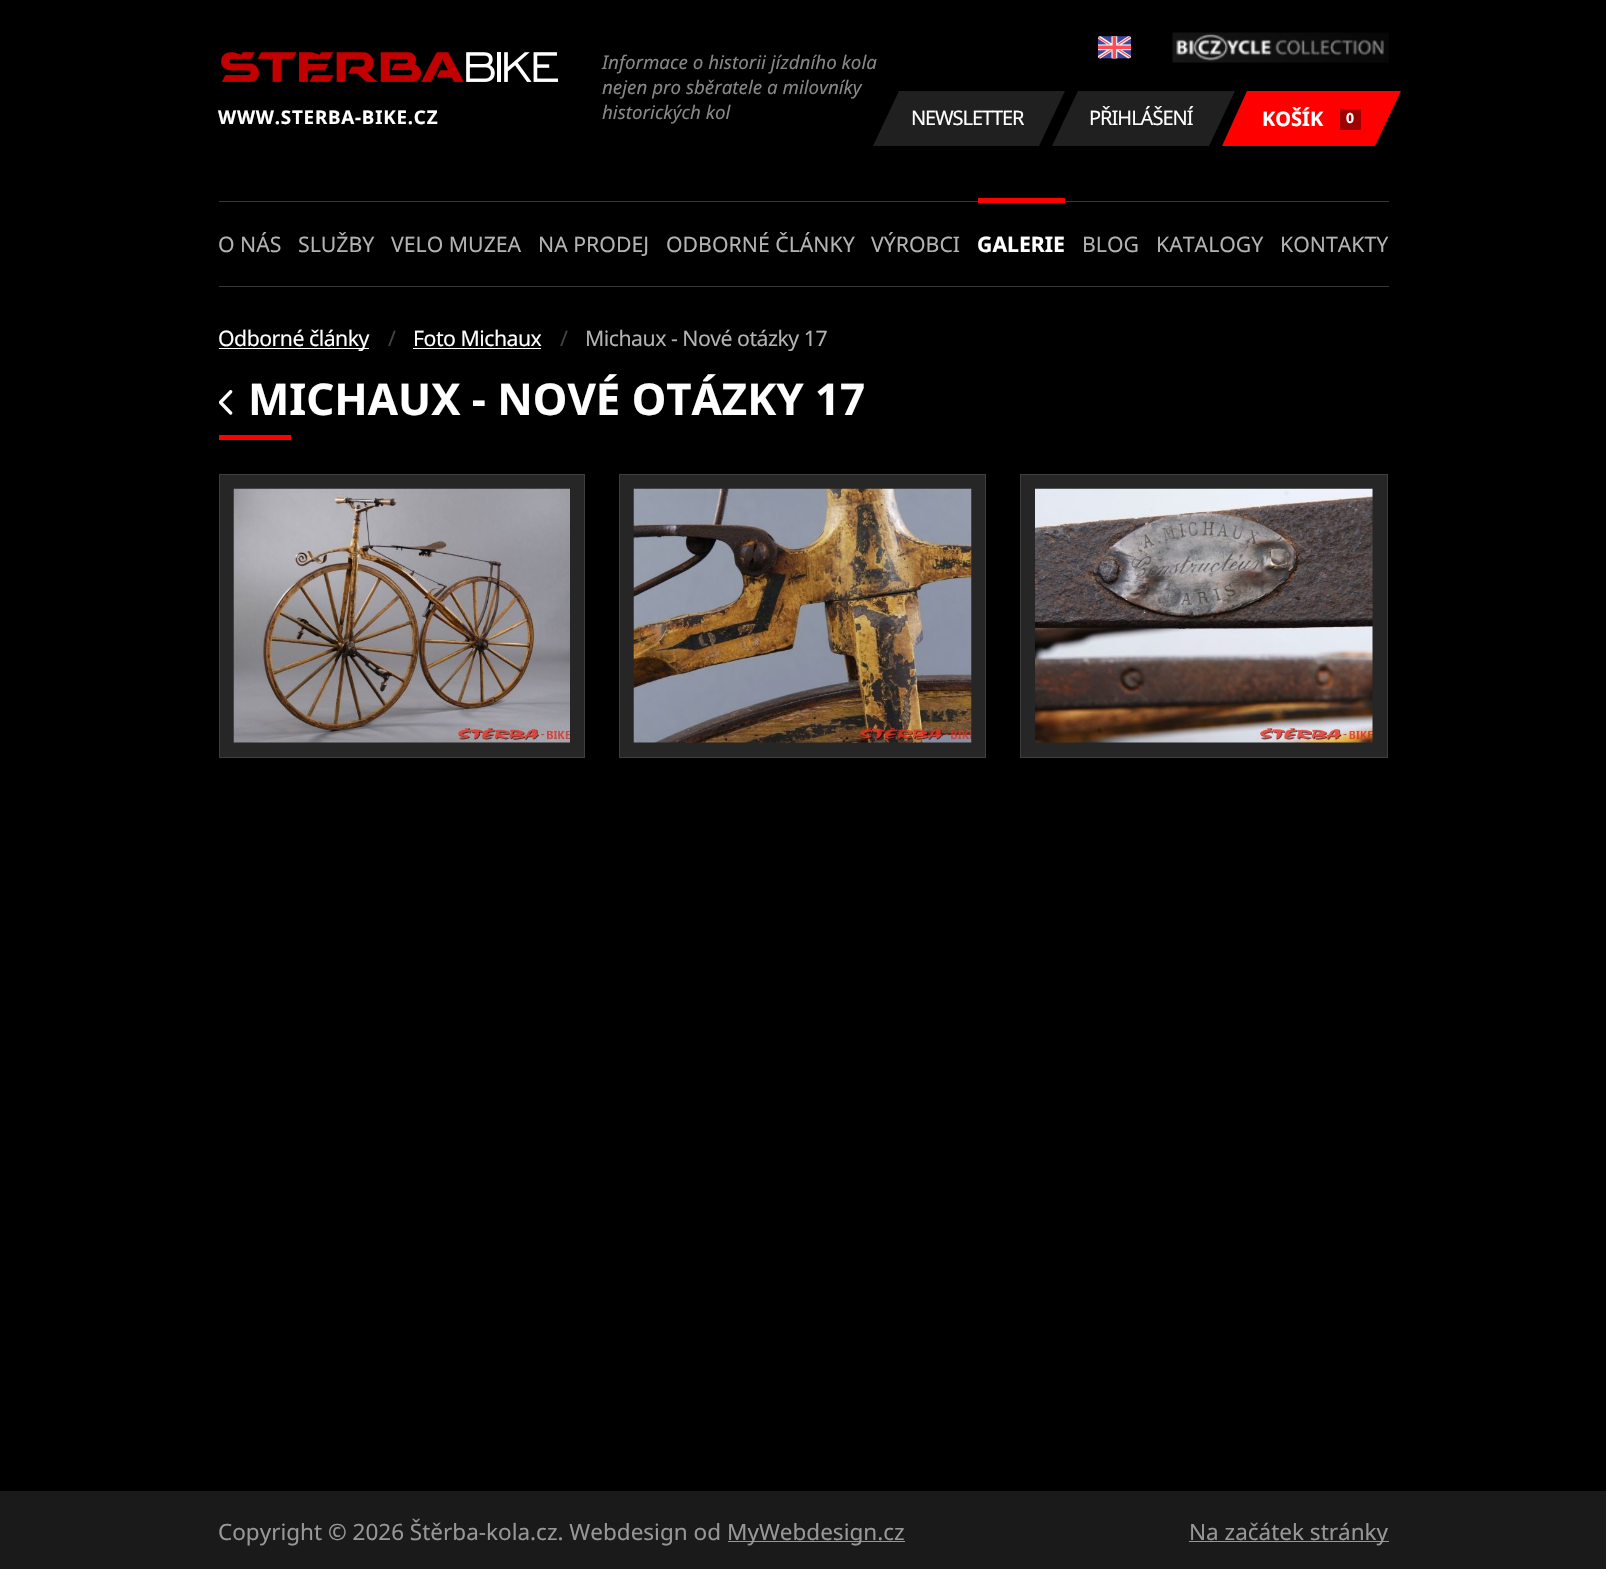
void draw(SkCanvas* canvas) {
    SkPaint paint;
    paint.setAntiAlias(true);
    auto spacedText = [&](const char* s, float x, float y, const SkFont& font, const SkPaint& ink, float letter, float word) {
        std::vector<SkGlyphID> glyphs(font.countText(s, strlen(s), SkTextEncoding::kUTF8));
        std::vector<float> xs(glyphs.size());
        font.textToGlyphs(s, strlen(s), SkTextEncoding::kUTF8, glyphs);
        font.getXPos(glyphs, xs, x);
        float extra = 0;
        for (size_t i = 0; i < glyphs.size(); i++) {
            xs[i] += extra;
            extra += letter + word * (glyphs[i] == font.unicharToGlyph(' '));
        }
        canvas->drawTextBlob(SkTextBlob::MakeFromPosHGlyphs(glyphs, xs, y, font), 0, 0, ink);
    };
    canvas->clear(0xFF000000);
    canvas->drawImageRect(SkImages::DeferredFromEncodedData(SkData::MakeFromFileName("img1.png")), SkRect::MakeXYWH(221, 52, 337, 30), SkSamplingOptions());
    SkFont font1(fontMgr->matchFamilyStyle("Noto Sans", SkFontStyle::Bold()), 18.75f);
    font1.setSubpixel(true);
    paint.setColor(0xFFFFFFFF);
    spacedText("WWW.STERBA-BIKE.CZ", 218, 124, font1, paint, 0.8f, 0);
    SkFont font2(fontMgr->matchFamilyStyle("Noto Sans", SkFontStyle::Italic()), 18.75f);
    font2.setSubpixel(true);
    paint.setColor(0xFF878787);
    canvas->drawString("Informace o historii jízdního kola", 602, 69, font2, paint);
    canvas->drawString("nejen pro sběratele a milovníky", 602, 94, font2, paint);
    canvas->drawString("historických kol", 602, 119, font2, paint);
    canvas->drawImageRect(SkImages::DeferredFromEncodedData(SkData::MakeFromFileName("img2.png")), SkRect::MakeXYWH(1098, 36, 33, 23), SkSamplingOptions());
    canvas->drawImageRect(SkImages::DeferredFromEncodedData(SkData::MakeFromFileName("img3.png")), SkRect::MakeXYWH(1172, 32, 217, 31), SkSamplingOptions());
    paint.setColor(0xFF202020);
    canvas->drawPath(SkPathBuilder().moveTo(899, 91).lineTo(1065, 91).lineTo(1039, 146).lineTo(873, 146).close().detach(), paint);
    SkFont font3(fontMgr->matchFamilyStyle("Noto Sans", SkFontStyle::Normal()), 20);
    font3.setSubpixel(true);
    paint.setColor(0xFFFFFFFF);
    spacedText("NEWSLETTER", 911, 125, font3, paint, -1.1f, 0);
    paint.setColor(0xFF202020);
    canvas->drawPath(SkPathBuilder().moveTo(1078, 91).lineTo(1235, 91).lineTo(1209, 146).lineTo(1052, 146).close().detach(), paint);
    paint.setColor(0xFFFFFFFF);
    spacedText("PŘIHLÁŠENÍ", 1089, 125, font3, paint, -1, 0);
    paint.setColor(0xFFFF0000);
    canvas->drawPath(SkPathBuilder().moveTo(1247, 91).lineTo(1401, 91).lineTo(1375, 146).lineTo(1222, 146).close().detach(), paint);
    SkFont font4(fontMgr->matchFamilyStyle("Noto Sans", SkFontStyle::Bold()), 20);
    font4.setSubpixel(true);
    paint.setColor(0xFFFFFFFF);
    canvas->drawString("KOŠÍK", 1262, 126, font4, paint);
    paint.setColor(0xFF9E0000);
    canvas->drawRect(SkRect::MakeXYWH(1340, 109, 21, 21), paint);
    SkFont font5(fontMgr->matchFamilyStyle("Noto Sans", SkFontStyle::Bold()), 14);
    font5.setSubpixel(true);
    paint.setColor(0xFFFFFFFF);
    canvas->drawString("0", 1346, 123, font5, paint);
    paint.setColor(0xFF373737);
    canvas->drawRect(SkRect::MakeXYWH(219, 201, 1170, 1), paint);
    canvas->drawRect(SkRect::MakeXYWH(219, 286, 1170, 1), paint);
    SkFont font6(fontMgr->matchFamilyStyle("Noto Sans", SkFontStyle::Normal()), 21.25f);
    font6.setSubpixel(true);
    paint.setColor(0xFFB3B3B3);
    canvas->drawString("O NÁS", 218, 252, font6, paint);
    canvas->drawString("SLUŽBY", 298, 252, font6, paint);
    canvas->drawString("VELO MUZEA", 391, 252, font6, paint);
    canvas->drawString("NA PRODEJ", 538, 252, font6, paint);
    canvas->drawString("ODBORNÉ ČLÁNKY", 666, 252, font6, paint);
    canvas->drawString("VÝROBCI", 871, 252, font6, paint);
    paint.setColor(0xFFFF0000);
    canvas->drawRect(SkRect::MakeXYWH(978, 198, 87, 5), paint);
    SkFont font7(fontMgr->matchFamilyStyle("Noto Sans", SkFontStyle::Bold()), 21.25f);
    font7.setSubpixel(true);
    paint.setColor(0xFFFFFFFF);
    canvas->drawString("GALERIE", 977, 252, font7, paint);
    paint.setColor(0xFFB3B3B3);
    canvas->drawString("BLOG", 1082, 252, font6, paint);
    canvas->drawString("KATALOGY", 1156, 252, font6, paint);
    canvas->drawString("KONTAKTY", 1280, 252, font6, paint);
    paint.setColor(0xFFFFFFFF);
    canvas->drawRect(SkRect::MakeXYWH(219, 348, 150, 1), paint);
    spacedText("Odborné články", 218, 346, font6, paint, -0.5f, 0);
    paint.setColor(0xFF434343);
    spacedText("/", 388, 346, font6, paint, -0.5f, 0);
    paint.setColor(0xFFFFFFFF);
    spacedText("Foto Michaux", 413, 346, font6, paint, -0.5f, 0);
    canvas->drawRect(SkRect::MakeXYWH(413, 348, 128, 1), paint);
    paint.setColor(0xFF434343);
    spacedText("/", 560, 346, font6, paint, -0.5f, 0);
    paint.setColor(0xFFB3B3B3);
    spacedText("Michaux - Nové otázky 17", 585, 346, font6, paint, -0.5f, 0);
    canvas->drawImageRect(SkImages::DeferredFromEncodedData(SkData::MakeFromFileName("img4.png")), SkRect::MakeXYWH(219, 390, 14, 25), SkSamplingOptions());
    SkFont font8(fontMgr->matchFamilyStyle("Noto Sans", SkFontStyle::Bold()), 43.75f);
    font8.setSubpixel(true);
    paint.setColor(0xFFFFFFFF);
    canvas->drawString("MICHAUX - NOVÉ OTÁZKY 17", 248, 415, font8, paint);
    paint.setColor(0xFFFF0000);
    canvas->drawRect(SkRect::MakeXYWH(219, 435, 72, 5), paint);
    paint.setColor(0xFF262626);
    canvas->drawRect(SkRect::MakeXYWH(219.5f, 474.5f, 365, 283), paint);
    paint.setStyle(SkPaint::kStroke_Style);
    paint.setStrokeWidth(1);
    paint.setColor(0xFF3E3E3E);
    canvas->drawRect(SkRect::MakeXYWH(219.5f, 474.5f, 365, 283), paint);
    canvas->drawImageRect(SkImages::DeferredFromEncodedData(SkData::MakeFromFileName("img5.png")), SkRect::MakeXYWH(233, 488, 337, 255), SkSamplingOptions());
    paint.setStyle(SkPaint::kFill_Style);
    paint.setColor(0xFF262626);
    canvas->drawRect(SkRect::MakeXYWH(619.5f, 474.5f, 366, 283), paint);
    paint.setStyle(SkPaint::kStroke_Style);
    paint.setColor(0xFF3E3E3E);
    canvas->drawRect(SkRect::MakeXYWH(619.5f, 474.5f, 366, 283), paint);
    canvas->drawImageRect(SkImages::DeferredFromEncodedData(SkData::MakeFromFileName("img6.png")), SkRect::MakeXYWH(633, 488, 339, 255), SkSamplingOptions());
    paint.setStyle(SkPaint::kFill_Style);
    paint.setColor(0xFF262626);
    canvas->drawRect(SkRect::MakeXYWH(1020.5f, 474.5f, 367, 283), paint);
    paint.setStyle(SkPaint::kStroke_Style);
    paint.setColor(0xFF3E3E3E);
    canvas->drawRect(SkRect::MakeXYWH(1020.5f, 474.5f, 367, 283), paint);
    canvas->drawImageRect(SkImages::DeferredFromEncodedData(SkData::MakeFromFileName("img7.png")), SkRect::MakeXYWH(1035, 488, 338, 255), SkSamplingOptions());
    paint.setStyle(SkPaint::kFill_Style);
    paint.setColor(0xFF1A1A1A);
    canvas->drawRect(SkRect::MakeXYWH(0, 1491, 1606, 78), paint);
    SkFont font9(fontMgr->matchFamilyStyle("Noto Sans", SkFontStyle::Normal()), 22.5f);
    font9.setSubpixel(true);
    paint.setColor(0xFF979797);
    canvas->drawString("Copyright © 2026 Štěrba-kola.cz. Webdesign od", 218, 1540, font9, paint);
    canvas->drawRect(SkRect::MakeXYWH(728, 1541, 177, 1), paint);
    canvas->drawString("MyWebdesign.cz", 727, 1540, font9, paint);
    canvas->drawRect(SkRect::MakeXYWH(1189, 1541, 200, 1), paint);
    canvas->drawString("Na začátek stránky", 1189, 1540, font9, paint);
}
